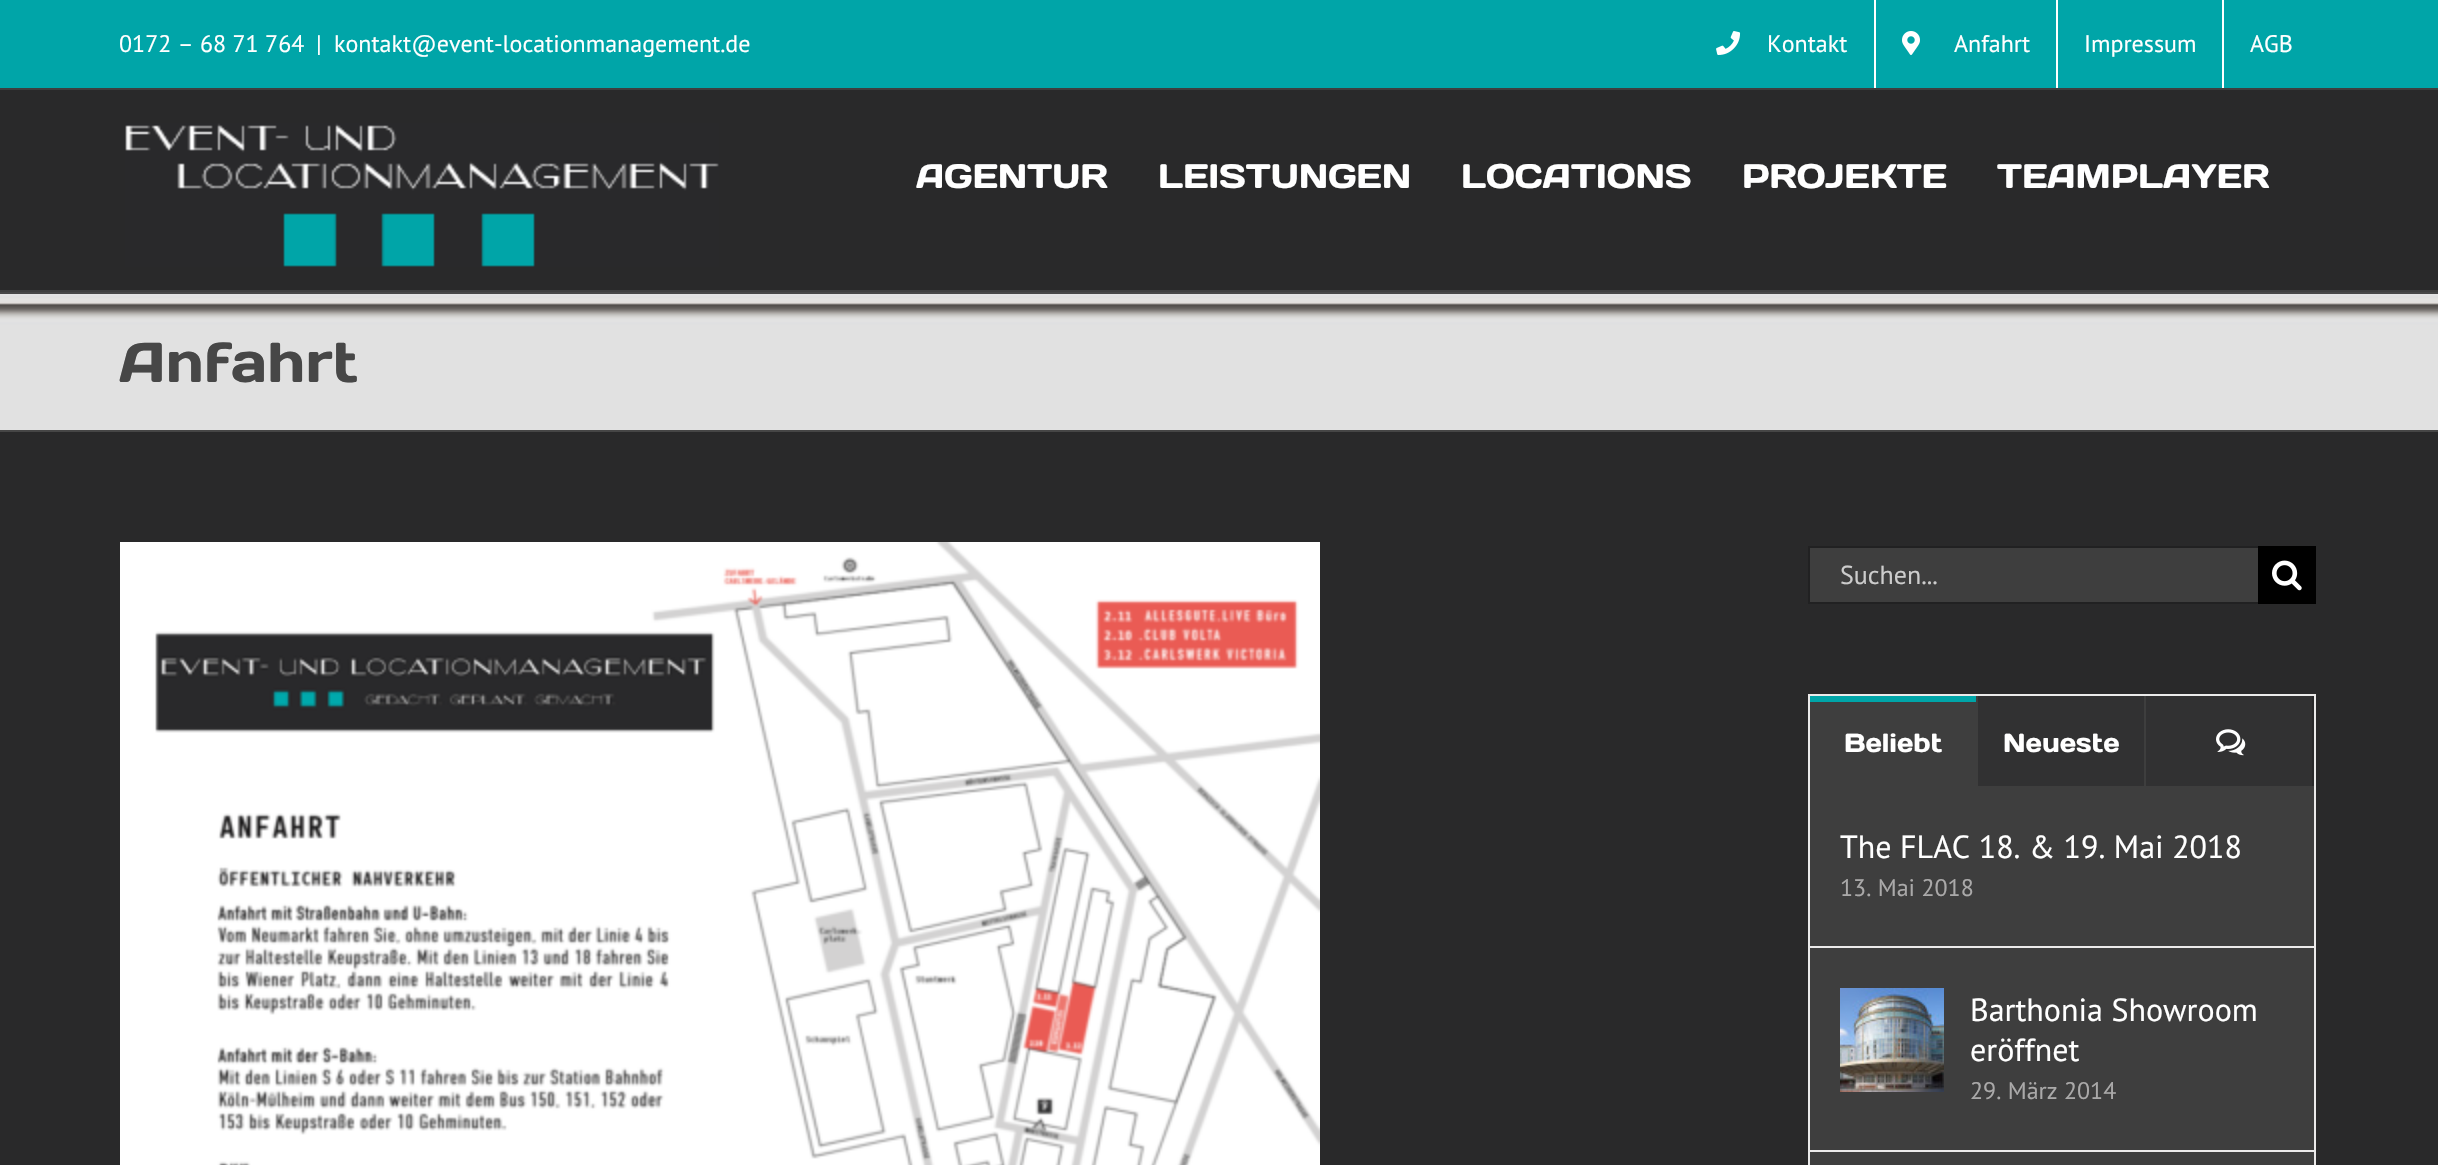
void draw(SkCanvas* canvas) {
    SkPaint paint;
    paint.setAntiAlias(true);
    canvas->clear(0xFF29292A);
    paint.setColor(0xFF00A5A8);
    canvas->drawRect(SkRect::MakeXYWH(0, 0, 2438, 88), paint);
    paint.setColor(0xFF3E3E3E);
    canvas->drawRect(SkRect::MakeXYWH(0, 88, 2438, 2), paint);
    SkFont font1(fontMgr->matchFamilyStyle("PT Sans", SkFontStyle::Normal()), 24);
    font1.setSubpixel(true);
    paint.setColor(0xFFFFFFFF);
    canvas->drawString("0172 – 68 71 764", 119, 52, font1, paint);
    canvas->drawString("|", 316, 52, font1, paint);
    canvas->drawString("kontakt@event-locationmanagement.de", 334, 52, font1, paint);
    canvas->drawImageRect(SkImages::DeferredFromEncodedData(SkData::MakeFromFileName("img1.png")), SkRect::MakeXYWH(1716, 31, 25, 24), SkSamplingOptions());
    canvas->drawString("Kontakt", 1767, 52, font1, paint);
    canvas->drawRect(SkRect::MakeXYWH(1874, 0, 2, 88), paint);
    canvas->drawImageRect(SkImages::DeferredFromEncodedData(SkData::MakeFromFileName("img2.png")), SkRect::MakeXYWH(1902, 31, 18, 24), SkSamplingOptions());
    canvas->drawString("Anfahrt", 1954, 52, font1, paint);
    canvas->drawRect(SkRect::MakeXYWH(2056, 0, 2, 88), paint);
    canvas->drawString("Impressum", 2084, 52, font1, paint);
    canvas->drawRect(SkRect::MakeXYWH(2222, 0, 2, 88), paint);
    canvas->drawString("AGB", 2250, 52, font1, paint);
    paint.setColor(0xFF3E3E3E);
    canvas->drawRect(SkRect::MakeXYWH(0, 290, 2438, 2), paint);
    canvas->drawImageRect(SkImages::DeferredFromEncodedData(SkData::MakeFromFileName("img3.png")), SkRect::MakeXYWH(125, 123, 594, 144), SkSamplingOptions());
    SkFont font2(fontMgr->matchFamilyStyle("Days One", SkFontStyle::Normal()), 34);
    font2.setSubpixel(true);
    paint.setColor(0xFFFFFFFF);
    canvas->drawString("AGENTUR", 916, 188, font2, paint);
    canvas->drawString("LEISTUNGEN", 1158, 188, font2, paint);
    canvas->drawString("LOCATIONS", 1461, 188, font2, paint);
    canvas->drawString("PROJEKTE", 1742, 188, font2, paint);
    canvas->drawString("TEAMPLAYER", 1997, 188, font2, paint);
    canvas->drawImageRect(SkImages::DeferredFromEncodedData(SkData::MakeFromFileName("img4.png")), SkRect::MakeXYWH(0, 294, 2438, 136), SkSamplingOptions());
    paint.setColor(0xFF464646);
    canvas->drawRect(SkRect::MakeXYWH(0, 292, 2438, 2), paint);
    canvas->drawRect(SkRect::MakeXYWH(0, 430, 2438, 2), paint);
    SkFont font3(fontMgr->matchFamilyStyle("Days One", SkFontStyle::Normal()), 56);
    font3.setSubpixel(true);
    paint.setColor(0xFF474747);
    canvas->drawString("Anfahrt", 119, 382, font3, paint);
    canvas->drawImageRect(SkImages::DeferredFromEncodedData(SkData::MakeFromFileName("img5.png")), SkRect::MakeXYWH(120, 542, 1200, 623), SkSamplingOptions());
    paint.setColor(0xFF3E3E3E);
    canvas->drawRect(SkRect::MakeXYWH(1810, 548, 448, 54), paint);
    paint.setColor(0xFF212122);
    canvas->drawRect(SkRect::MakeXYWH(1808, 546, 450, 2), paint);
    canvas->drawRect(SkRect::MakeXYWH(1808, 602, 450, 2), paint);
    canvas->drawRect(SkRect::MakeXYWH(1808, 546, 2, 58), paint);
    SkFont font4(fontMgr->matchFamilyStyle("PT Sans", SkFontStyle::Normal()), 26);
    font4.setSubpixel(true);
    paint.setColor(0xFFCCCCCC);
    canvas->drawString("Suchen...", 1840, 584, font4, paint);
    paint.setColor(0xFF000000);
    canvas->drawRect(SkRect::MakeXYWH(2258, 546, 58, 58), paint);
    canvas->drawImageRect(SkImages::DeferredFromEncodedData(SkData::MakeFromFileName("img6.png")), SkRect::MakeXYWH(2272, 560, 30, 31), SkSamplingOptions());
    paint.setStyle(SkPaint::kStroke_Style);
    paint.setStrokeWidth(2);
    paint.setColor(0xFFEBEAEA);
    canvas->drawRect(SkRect::MakeXYWH(1809, 695, 506, 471), paint);
    paint.setStyle(SkPaint::kFill_Style);
    paint.setColor(0xFF3E3E3E);
    canvas->drawRect(SkRect::MakeXYWH(1976, 696, 2, 90), paint);
    canvas->drawRect(SkRect::MakeXYWH(1810, 702, 166, 84), paint);
    paint.setColor(0xFF00A5A8);
    canvas->drawRect(SkRect::MakeXYWH(1810, 696, 166, 6), paint);
    SkFont font5(fontMgr->matchFamilyStyle("Days One", SkFontStyle::Normal()), 26);
    font5.setSubpixel(true);
    paint.setColor(0xFFFFFFFF);
    canvas->drawString("Beliebt", 1844, 752, font5, paint);
    paint.setColor(0xFF3E3E3E);
    canvas->drawRect(SkRect::MakeXYWH(2144, 696, 2, 90), paint);
    paint.setColor(0xFF313132);
    canvas->drawRect(SkRect::MakeXYWH(1978, 696, 166, 90), paint);
    paint.setColor(0xFFFFFFFF);
    canvas->drawString("Neueste", 2003, 752, font5, paint);
    paint.setColor(0xFF313132);
    canvas->drawRect(SkRect::MakeXYWH(2146, 696, 166, 90), paint);
    canvas->drawImageRect(SkImages::DeferredFromEncodedData(SkData::MakeFromFileName("img7.png")), SkRect::MakeXYWH(2216, 729, 30, 27), SkSamplingOptions());
    paint.setColor(0xFF3E3E3E);
    canvas->drawRect(SkRect::MakeXYWH(1810, 786, 504, 379), paint);
    paint.setColor(0xFFEBEAEA);
    canvas->drawRect(SkRect::MakeXYWH(1810, 946, 504, 2), paint);
    SkFont font6(fontMgr->matchFamilyStyle("PT Sans", SkFontStyle::Normal()), 32);
    font6.setSubpixel(true);
    paint.setColor(0xFFFFFFFF);
    canvas->drawString("The FLAC 18. & 19. Mai 2018", 1840, 858, font6, paint);
    paint.setColor(0xFFAAA9A9);
    canvas->drawString("13. Mai 2018", 1840, 896, font1, paint);
    paint.setColor(0xFFEBEAEA);
    canvas->drawRect(SkRect::MakeXYWH(1810, 1150, 504, 2), paint);
    canvas->drawImageRect(SkImages::DeferredFromEncodedData(SkData::MakeFromFileName("img8.png")), SkRect::MakeXYWH(1840, 988, 104, 104), SkSamplingOptions());
    paint.setColor(0xFFFFFFFF);
    canvas->drawString("Barthonia Showroom", 1970, 1021, font6, paint);
    canvas->drawString("eröffnet", 1970, 1061, font6, paint);
    paint.setColor(0xFFAAA9A9);
    canvas->drawString("29. März 2014", 1970, 1099, font1, paint);
}
